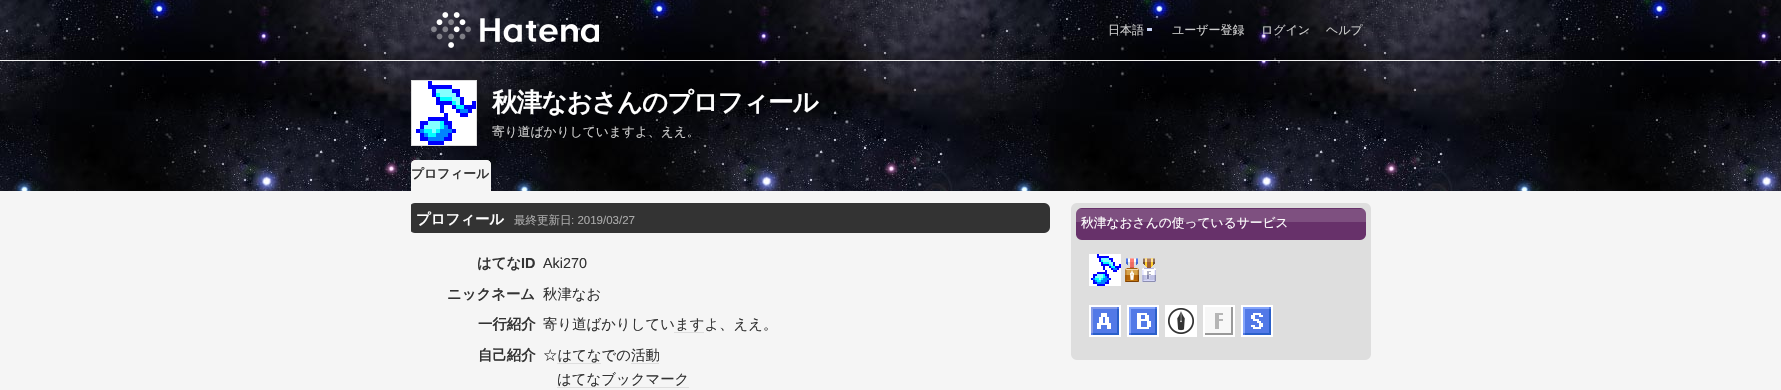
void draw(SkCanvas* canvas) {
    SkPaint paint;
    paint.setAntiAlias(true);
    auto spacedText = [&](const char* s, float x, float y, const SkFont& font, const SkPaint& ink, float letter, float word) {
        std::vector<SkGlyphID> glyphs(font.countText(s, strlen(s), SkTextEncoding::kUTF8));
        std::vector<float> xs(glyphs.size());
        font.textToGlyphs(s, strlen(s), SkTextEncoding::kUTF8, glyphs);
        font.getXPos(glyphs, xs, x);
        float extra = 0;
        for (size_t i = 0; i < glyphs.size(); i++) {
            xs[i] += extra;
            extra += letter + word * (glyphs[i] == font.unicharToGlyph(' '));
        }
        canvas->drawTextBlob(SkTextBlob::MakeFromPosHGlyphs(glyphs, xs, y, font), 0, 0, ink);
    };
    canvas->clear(0xFFF5F5F5);
    canvas->drawImageRect(SkImages::DeferredFromEncodedData(SkData::MakeFromFileName("img1.png")), SkRect::MakeXYWH(0, 0, 1781, 60), SkSamplingOptions());
    paint.setColor(0xFFF0F0F0);
    canvas->drawRect(SkRect::MakeXYWH(0, 60, 1781, 1), paint);
    canvas->drawImageRect(SkImages::DeferredFromEncodedData(SkData::MakeFromFileName("img2.png")), SkRect::MakeXYWH(431, 12, 168, 36), SkSamplingOptions());
    paint.setColor(0xFFC6D0F3);
    canvas->drawRect(SkRect::MakeXYWH(1147, 28, 5, 3), paint);
    SkFont font1(fontMgr->matchFamilyStyle("WenQuanYi Zen Hei", SkFontStyle(500, SkFontStyle::kNormal_Width, SkFontStyle::kUpright_Slant)), 12);
    font1.setSubpixel(true);
    paint.setColor(0xFFCDCDCD);
    canvas->drawString("日本語", 1108, 34, font1, paint);
    canvas->drawString("ユーザー登録", 1172, 34, font1, paint);
    canvas->drawString("ログイン", 1261, 34, font1, paint);
    canvas->drawString("ヘルプ", 1326, 34, font1, paint);
    canvas->drawImageRect(SkImages::DeferredFromEncodedData(SkData::MakeFromFileName("img3.png")), SkRect::MakeXYWH(0, 61, 1781, 130), SkSamplingOptions());
    paint.setColor(0xFFFFFFFF);
    canvas->drawRect(SkRect::MakeXYWH(412, 81, 4, 64), paint);
    paint.setStyle(SkPaint::kStroke_Style);
    paint.setStrokeWidth(1);
    paint.setColor(0xFFDEDEDE);
    canvas->drawRect(SkRect::MakeXYWH(411.5f, 80.5f, 65, 65), paint);
    canvas->drawImageRect(SkImages::DeferredFromEncodedData(SkData::MakeFromFileName("img4.png")), SkRect::MakeXYWH(416, 81, 60, 64), SkSamplingOptions());
    SkFont font2(fontMgr->matchFamilyStyle("WenQuanYi Zen Hei", SkFontStyle::Bold()), 25.6f);
    font2.setSubpixel(true);
    paint.setStyle(SkPaint::kFill_Style);
    paint.setColor(0xFFFFFFFF);
    spacedText("秋津なおさんのプロフィール", 492, 111, font2, paint, -1, 0);
    SkFont font3(fontMgr->matchFamilyStyle("WenQuanYi Zen Hei", SkFontStyle(500, SkFontStyle::kNormal_Width, SkFontStyle::kUpright_Slant)), 12.75f);
    font3.setSubpixel(true);
    paint.setColor(0xFFCDCDCD);
    canvas->drawString("寄り道ばかりしていますよ、ええ。", 492, 136, font3, paint);
    canvas->drawImageRect(SkImages::DeferredFromEncodedData(SkData::MakeFromFileName("img5.png")), SkRect::MakeXYWH(411, 160, 80, 31), SkSamplingOptions());
    SkFont font4(fontMgr->matchFamilyStyle("WenQuanYi Zen Hei", SkFontStyle::Bold()), 12.75f);
    font4.setSubpixel(true);
    paint.setColor(0xFF333333);
    canvas->drawString("プロフィール", 411, 178, font4, paint);
    canvas->drawImageRect(SkImages::DeferredFromEncodedData(SkData::MakeFromFileName("img6.png")), SkRect::MakeXYWH(411, 203, 639, 30), SkSamplingOptions());
    SkFont font5(fontMgr->matchFamilyStyle("WenQuanYi Zen Hei", SkFontStyle::Bold()), 14.4f);
    font5.setSubpixel(true);
    paint.setColor(0xFFFFFFFF);
    canvas->drawString("プロフィール", 416, 224, font5, paint);
    SkFont font6(fontMgr->matchFamilyStyle("WenQuanYi Zen Hei", SkFontStyle(500, SkFontStyle::kNormal_Width, SkFontStyle::kUpright_Slant)), 11.5f);
    font6.setSubpixel(true);
    paint.setColor(0xFFAAAAAA);
    canvas->drawString("最終更新日", 514, 224, font6, paint);
    SkFont font7(fontMgr->matchFamilyStyle("Liberation Sans", SkFontStyle::Normal()), 11.5f);
    font7.setSubpixel(true);
    canvas->drawString(": 2019/03/27", 571, 224, font7, paint);
    paint.setColor(0xFF333333);
    canvas->drawString("はてな", 477, 268, font5, paint);
    SkFont font8(fontMgr->matchFamilyStyle("Liberation Sans", SkFontStyle::Bold()), 14.4f);
    font8.setSubpixel(true);
    canvas->drawString("ID", 521, 268, font8, paint);
    SkFont font9(fontMgr->matchFamilyStyle("Liberation Sans", SkFontStyle::Normal()), 14.4f);
    font9.setSubpixel(true);
    canvas->drawString("Aki270", 543, 268, font9, paint);
    canvas->drawString("ニックネーム", 447, 299, font5, paint);
    SkFont font10(fontMgr->matchFamilyStyle("WenQuanYi Zen Hei", SkFontStyle(500, SkFontStyle::kNormal_Width, SkFontStyle::kUpright_Slant)), 14.4f);
    font10.setSubpixel(true);
    canvas->drawString("秋津なお", 543, 299, font10, paint);
    canvas->drawString("一行紹介", 478, 329, font5, paint);
    canvas->drawString("寄り道ばかりしていますよ、ええ。", 543, 329, font10, paint);
    paint.setColor(0xFFDEDEDE);
    canvas->drawRect(SkRect::MakeXYWH(674, 332, 30, 1), paint);
    paint.setColor(0xFF333333);
    canvas->drawString("自己紹介", 478, 360, font5, paint);
    canvas->drawString("☆はてなでの活動", 543, 360, font10, paint);
    paint.setColor(0xFFDEDEDE);
    canvas->drawRect(SkRect::MakeXYWH(557, 363, 44, 1), paint);
    canvas->drawRect(SkRect::MakeXYWH(631, 363, 28, 1), paint);
    paint.setColor(0xFF333333);
    canvas->drawString("はてなブックマーク", 557, 384, font10, paint);
    paint.setColor(0xFFDEDEDE);
    canvas->drawRect(SkRect::MakeXYWH(557, 387, 132, 1), paint);
    canvas->drawImageRect(SkImages::DeferredFromEncodedData(SkData::MakeFromFileName("img7.png")), SkRect::MakeXYWH(1071, 355, 300, 5), SkSamplingOptions());
    canvas->drawImageRect(SkImages::DeferredFromEncodedData(SkData::MakeFromFileName("img8.png")), SkRect::MakeXYWH(1071, 203, 300, 32), SkSamplingOptions());
    paint.setColor(0xFFFFFFFF);
    canvas->drawString("秋津なおさんの使っているサービス", 1081, 227, font3, paint);
    paint.setColor(0xFFDEDEDE);
    canvas->drawRect(SkRect::MakeXYWH(1071, 235, 300, 120), paint);
    canvas->drawImageRect(SkImages::DeferredFromEncodedData(SkData::MakeFromFileName("img9.png")), SkRect::MakeXYWH(1076, 235, 290, 5), SkSamplingOptions());
    paint.setColor(0xFFFFFFFF);
    canvas->drawRect(SkRect::MakeXYWH(1089, 254, 2, 32), paint);
    canvas->drawImageRect(SkImages::DeferredFromEncodedData(SkData::MakeFromFileName("img10.png")), SkRect::MakeXYWH(1091, 254, 30, 32), SkSamplingOptions());
    canvas->drawImageRect(SkImages::DeferredFromEncodedData(SkData::MakeFromFileName("img11.png")), SkRect::MakeXYWH(1125, 258, 14, 24), SkSamplingOptions());
    canvas->drawImageRect(SkImages::DeferredFromEncodedData(SkData::MakeFromFileName("img12.png")), SkRect::MakeXYWH(1142, 258, 14, 24), SkSamplingOptions());
    canvas->drawRect(SkRect::MakeXYWH(1089, 305, 32, 32), paint);
    canvas->drawImageRect(SkImages::DeferredFromEncodedData(SkData::MakeFromFileName("img13.png")), SkRect::MakeXYWH(1091, 307, 28, 28), SkSamplingOptions());
    canvas->drawRect(SkRect::MakeXYWH(1127, 305, 32, 32), paint);
    canvas->drawImageRect(SkImages::DeferredFromEncodedData(SkData::MakeFromFileName("img14.png")), SkRect::MakeXYWH(1129, 307, 28, 28), SkSamplingOptions());
    canvas->drawRect(SkRect::MakeXYWH(1165, 305, 32, 32), paint);
    canvas->drawImageRect(SkImages::DeferredFromEncodedData(SkData::MakeFromFileName("img15.png")), SkRect::MakeXYWH(1168, 308, 26, 26), SkSamplingOptions());
    canvas->drawRect(SkRect::MakeXYWH(1203, 305, 32, 32), paint);
    canvas->drawImageRect(SkImages::DeferredFromEncodedData(SkData::MakeFromFileName("img16.png")), SkRect::MakeXYWH(1205, 307, 28, 28), SkSamplingOptions());
    canvas->drawRect(SkRect::MakeXYWH(1241, 305, 32, 32), paint);
    canvas->drawImageRect(SkImages::DeferredFromEncodedData(SkData::MakeFromFileName("img17.png")), SkRect::MakeXYWH(1243, 307, 28, 28), SkSamplingOptions());
}
